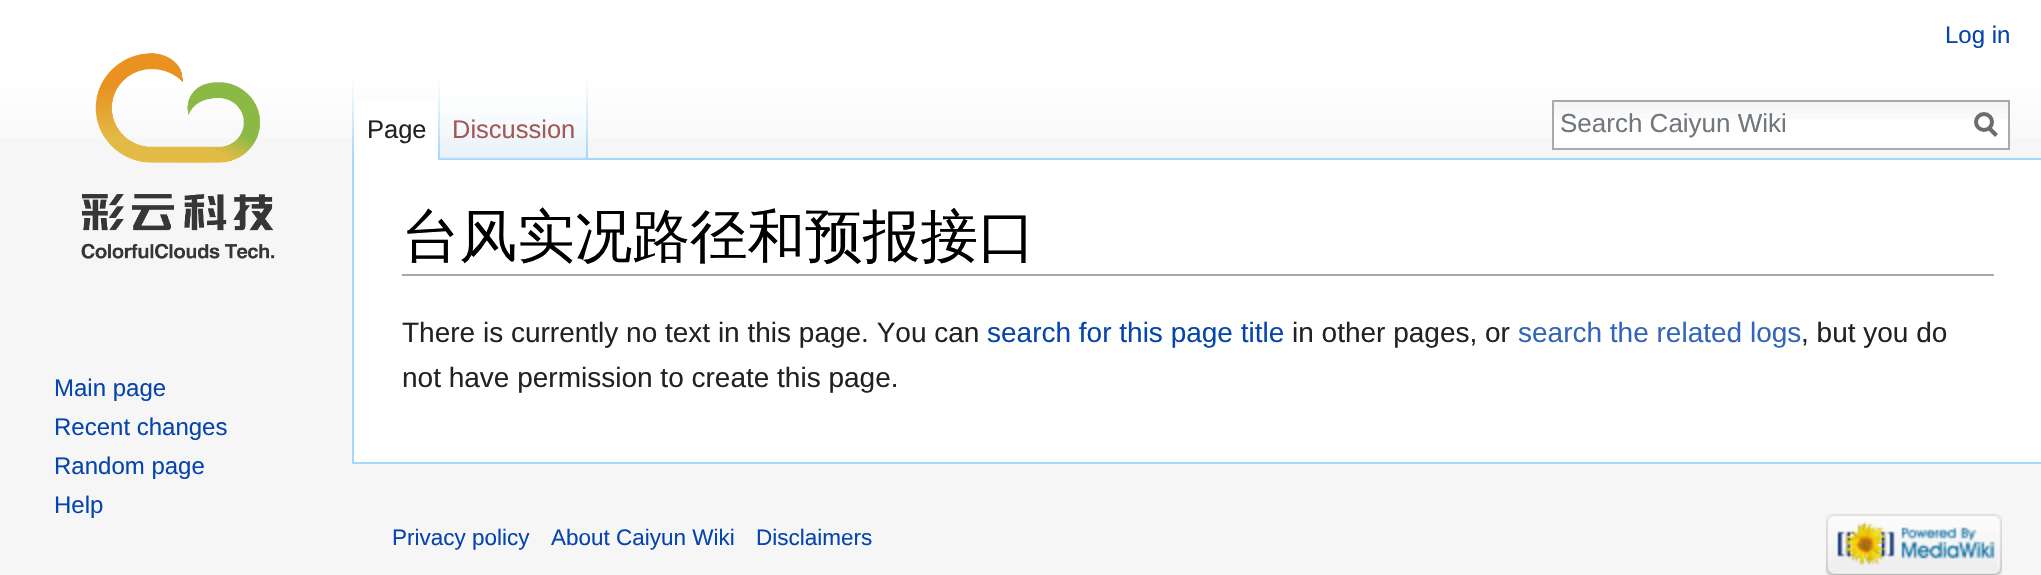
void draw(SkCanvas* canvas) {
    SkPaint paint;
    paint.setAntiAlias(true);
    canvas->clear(0xFFF6F6F6);
    {
        const SkColor colors[] = {0xFFFFFFFF, 0xFFF6F6F6};
        const float stops[] = {0.5f, 1};
        const SkPoint ends[] = {{1021, 0}, {1021, 160}};
        paint.setShader(SkGradientShader::MakeLinear(ends, colors, stops, 2, SkTileMode::kClamp));
        paint.setAlpha(255);
    }
    canvas->drawRect(SkRect::MakeXYWH(0, 0, 2041, 138), paint);
    SkFont font1(fontMgr->matchFamilyStyle("Liberation Sans", SkFontStyle::Normal()), 24);
    font1.setSubpixel(true);
    paint.setShader(nullptr);
    paint.setColor(0xFF0645AD);
    canvas->drawString("Log in", 1945, 43, font1, paint);
    canvas->drawImageRect(SkImages::DeferredFromEncodedData(SkData::MakeFromFileName("img1.png")), SkRect::MakeXYWH(352, 80, 2, 78), SkSamplingOptions());
    paint.setColor(0xFFFFFFFF);
    canvas->drawRect(SkRect::MakeXYWH(354, 102, 84, 58), paint);
    canvas->drawImageRect(SkImages::DeferredFromEncodedData(SkData::MakeFromFileName("img2.png")), SkRect::MakeXYWH(438, 80, 2, 80), SkSamplingOptions());
    SkFont font2(fontMgr->matchFamilyStyle("Liberation Sans", SkFontStyle::Normal()), 25.5f);
    font2.setSubpixel(true);
    paint.setColor(0xFF222222);
    canvas->drawString("Page", 367, 138, font2, paint);
    canvas->drawImageRect(SkImages::DeferredFromEncodedData(SkData::MakeFromFileName("img3.png")), SkRect::MakeXYWH(440, 80, 148, 80), SkSamplingOptions());
    canvas->drawImageRect(SkImages::DeferredFromEncodedData(SkData::MakeFromFileName("img4.png")), SkRect::MakeXYWH(586, 80, 2, 79), SkSamplingOptions());
    paint.setColor(0xFFA55858);
    canvas->drawString("Discussion", 452, 138, font2, paint);
    paint.setColor(0xFFFFFFFF);
    canvas->drawRect(SkRect::MakeXYWH(1554, 119, 454, 29), paint);
    canvas->drawImageRect(SkImages::DeferredFromEncodedData(SkData::MakeFromFileName("img5.png")), SkRect::MakeXYWH(1554, 102, 454, 17), SkSamplingOptions());
    paint.setStyle(SkPaint::kStroke_Style);
    paint.setStrokeWidth(2);
    paint.setColor(0xFFAAAAAA);
    canvas->drawRect(SkRect::MakeXYWH(1553, 101, 456, 48), paint);
    SkFont font3(fontMgr->matchFamilyStyle("Liberation Sans", SkFontStyle::Normal()), 26);
    font3.setSubpixel(true);
    paint.setStyle(SkPaint::kFill_Style);
    paint.setColor(0xFF72777D);
    canvas->drawString("Search Caiyun Wiki", 1560, 132, font3, paint);
    paint.setStyle(SkPaint::kStroke_Style);
    paint.setStrokeWidth(4);
    paint.setColor(0xFF6C6C6C);
    canvas->drawPath(SkPathBuilder().moveTo(1996.5f, 135.5f).lineTo(1988.5f, 127.5f).detach(), paint);
    canvas->drawCircle(1984, 122, 8, paint);
    canvas->drawImageRect(SkImages::DeferredFromEncodedData(SkData::MakeFromFileName("img6.png")), SkRect::MakeXYWH(81, 53, 194, 206), SkSamplingOptions());
    paint.setStyle(SkPaint::kFill_Style);
    paint.setColor(0xFF0645AD);
    canvas->drawString("Main page", 54, 396, font1, paint);
    canvas->drawString("Recent changes", 54, 435, font1, paint);
    canvas->drawString("Random page", 54, 474, font1, paint);
    canvas->drawString("Help", 54, 513, font1, paint);
    paint.setColor(0xFFFFFFFF);
    canvas->drawRect(SkRect::MakeXYWH(354, 160, 1687, 302), paint);
    paint.setColor(0xFFA7D7F9);
    canvas->drawRect(SkRect::MakeXYWH(588, 158, 1453, 2), paint);
    canvas->drawRect(SkRect::MakeXYWH(352, 462, 1689, 2), paint);
    canvas->drawRect(SkRect::MakeXYWH(352, 158, 2, 306), paint);
    paint.setColor(0xFFA2A9B1);
    canvas->drawRect(SkRect::MakeXYWH(402, 274, 1592, 2), paint);
    SkFont font4(fontMgr->matchFamilyStyle("WenQuanYi Zen Hei", SkFontStyle(500, SkFontStyle::kNormal_Width, SkFontStyle::kUpright_Slant)), 57.6f);
    font4.setSubpixel(true);
    paint.setColor(0xFF000000);
    canvas->drawString("台风实况路径和预报接口", 402, 256, font4, paint);
    SkFont font5(fontMgr->matchFamilyStyle("Liberation Sans", SkFontStyle::Normal()), 28);
    font5.setSubpixel(true);
    paint.setColor(0xFF222222);
    canvas->drawString("There is currently no text in this page. You can", 402, 342, font5, paint);
    paint.setColor(0xFF0645AD);
    canvas->drawString("search for this page title", 987, 342, font5, paint);
    paint.setColor(0xFF222222);
    canvas->drawString("in other pages, or", 1292, 342, font5, paint);
    paint.setColor(0xFF3366BB);
    canvas->drawString("search the related logs", 1518, 342, font5, paint);
    paint.setColor(0xFF222222);
    canvas->drawString(", but you do", 1801, 342, font5, paint);
    canvas->drawString("not have permission to create this page.", 402, 387, font5, paint);
    SkFont font6(fontMgr->matchFamilyStyle("Liberation Sans", SkFontStyle::Normal()), 22.5f);
    font6.setSubpixel(true);
    paint.setColor(0xFF0645AD);
    canvas->drawString("Privacy policy", 392, 545, font6, paint);
    canvas->drawString("About Caiyun Wiki", 551, 545, font6, paint);
    canvas->drawString("Disclaimers", 756, 545, font6, paint);
    canvas->drawImageRect(SkImages::DeferredFromEncodedData(SkData::MakeFromFileName("img7.png")), SkRect::MakeXYWH(1826, 514, 176, 61), SkSamplingOptions());
}
